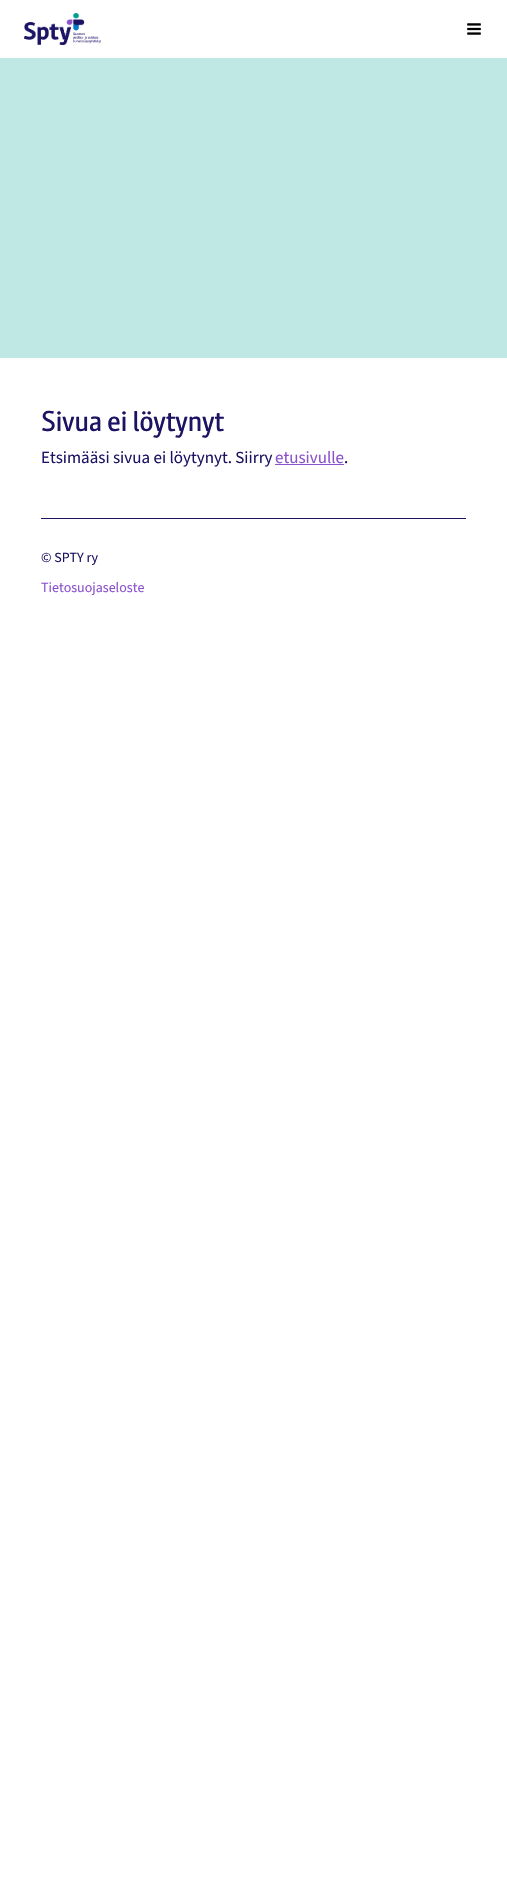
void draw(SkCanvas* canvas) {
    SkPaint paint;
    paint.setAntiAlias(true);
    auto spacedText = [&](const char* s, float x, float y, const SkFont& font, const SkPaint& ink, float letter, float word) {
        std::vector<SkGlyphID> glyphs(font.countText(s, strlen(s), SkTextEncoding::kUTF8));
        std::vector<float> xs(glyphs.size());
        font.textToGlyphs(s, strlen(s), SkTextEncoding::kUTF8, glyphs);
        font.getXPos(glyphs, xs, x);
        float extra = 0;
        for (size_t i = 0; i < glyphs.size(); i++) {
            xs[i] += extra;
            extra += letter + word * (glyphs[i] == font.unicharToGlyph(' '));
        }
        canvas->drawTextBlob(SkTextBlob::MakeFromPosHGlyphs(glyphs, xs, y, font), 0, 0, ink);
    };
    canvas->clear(0xFFFFFFFF);
    canvas->drawImageRect(SkImages::DeferredFromEncodedData(SkData::MakeFromFileName("img1.png")), SkRect::MakeXYWH(24, 13, 77, 32), SkSamplingOptions());
    canvas->drawImageRect(SkImages::DeferredFromEncodedData(SkData::MakeFromFileName("img2.png")), SkRect::MakeXYWH(467, 23, 14, 12), SkSamplingOptions());
    paint.setColor(0xFFBFE7E3);
    canvas->drawRect(SkRect::MakeXYWH(0, 58, 507, 300), paint);
    SkFont font1(fontMgr->matchFamilyStyle("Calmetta", SkFontStyle::Normal()), 28);
    font1.setSubpixel(true);
    paint.setColor(0xFF1C1463);
    spacedText("Sivua ei löytynyt", 41, 431, font1, paint, -0.4f, 0);
    SkFont font2(fontMgr->matchFamilyStyle("Source Sans 3", SkFontStyle::Normal()), 17);
    font2.setSubpixel(true);
    canvas->drawString("Etsimääsi sivua ei löytynyt. Siirry", 41, 463, font2, paint);
    paint.setColor(0xFF8C52CC);
    canvas->drawString("etusivulle", 275, 463, font2, paint);
    canvas->drawRect(SkRect::MakeXYWH(275, 464, 69, 1), paint);
    paint.setColor(0xFF1C1463);
    canvas->drawString(".", 344, 463, font2, paint);
    canvas->drawRect(SkRect::MakeXYWH(41, 518, 425, 1), paint);
    SkFont font3(fontMgr->matchFamilyStyle("Source Sans 3", SkFontStyle::Normal()), 14);
    font3.setSubpixel(true);
    canvas->drawString("© SPTY ry", 41, 562, font3, paint);
    paint.setColor(0xFF8C52CC);
    canvas->drawString("Tietosuojaseloste", 41, 592, font3, paint);
}
